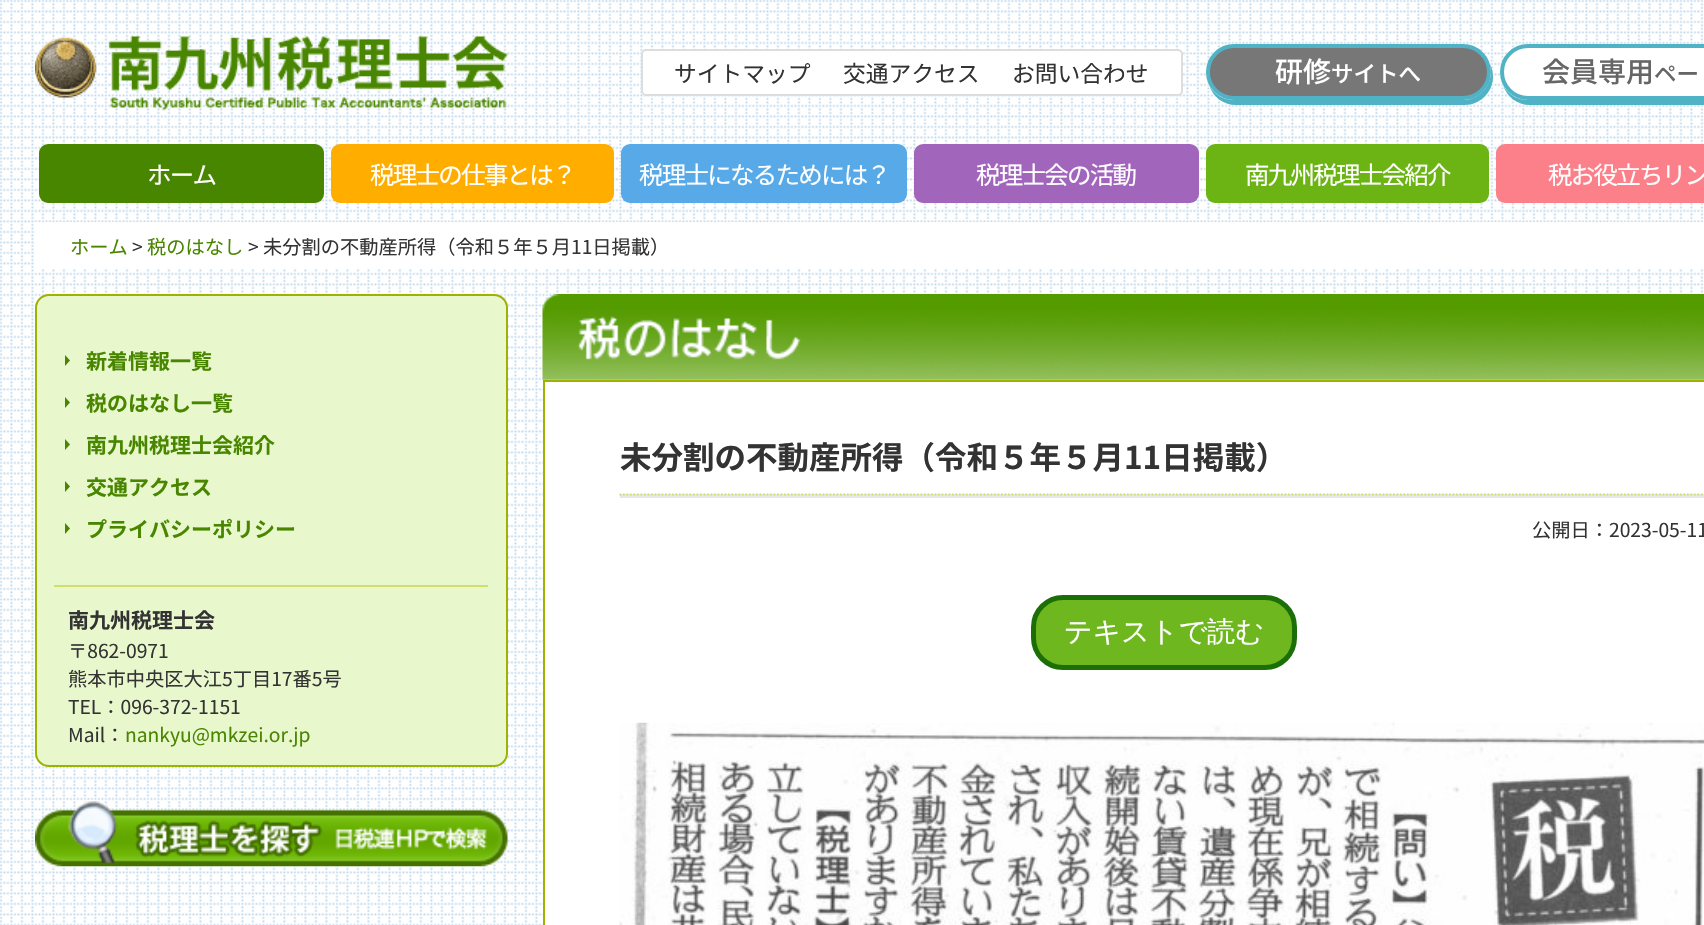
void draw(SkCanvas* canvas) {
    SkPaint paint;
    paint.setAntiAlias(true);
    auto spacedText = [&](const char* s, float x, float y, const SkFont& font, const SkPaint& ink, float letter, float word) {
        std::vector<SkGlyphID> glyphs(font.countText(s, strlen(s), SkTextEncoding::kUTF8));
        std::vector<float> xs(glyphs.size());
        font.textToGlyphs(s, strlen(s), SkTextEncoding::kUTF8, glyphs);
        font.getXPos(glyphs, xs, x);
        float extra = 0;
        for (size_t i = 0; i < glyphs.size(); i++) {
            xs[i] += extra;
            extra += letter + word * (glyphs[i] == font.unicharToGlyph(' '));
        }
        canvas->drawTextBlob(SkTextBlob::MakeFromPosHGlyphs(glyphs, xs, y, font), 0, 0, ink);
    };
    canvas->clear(0xFFFFFFFF);
    canvas->drawImageRect(SkImages::DeferredFromEncodedData(SkData::MakeFromFileName("img1.png")), SkRect::MakeXYWH(0, 0, 1704, 925), SkSamplingOptions());
    canvas->drawImageRect(SkImages::DeferredFromEncodedData(SkData::MakeFromFileName("img2.png")), SkRect::MakeXYWH(35, 35, 473, 76), SkSamplingOptions());
    paint.setColor(0xFFFFFFFF);
    canvas->drawRoundRect(SkRect::MakeXYWH(641, 49, 542, 47), 5, 5, paint);
    paint.setStyle(SkPaint::kStroke_Style);
    paint.setStrokeWidth(2);
    paint.setColor(0x66ABABAB);
    canvas->drawRoundRect(SkRect::MakeXYWH(642, 50, 540, 45), 4, 4, paint);
    SkFont font1(fontMgr->matchFamilyStyle("Noto Sans JP", SkFontStyle::Normal()), 22.75f);
    font1.setSubpixel(true);
    paint.setStyle(SkPaint::kFill_Style);
    paint.setColor(0xFF333333);
    canvas->drawString("サイトマップ", 674, 82, font1, paint);
    canvas->drawString("交通アクセス", 843, 82, font1, paint);
    canvas->drawString("お問い合わせ", 1012, 82, font1, paint);
    paint.setColor(0xFF50B2C5);
    canvas->drawPath(SkPathBuilder().moveTo(1209, 85).cubicTo(1213, 97, 1223, 105, 1236, 105).lineTo(1465, 105).cubicTo(1480, 105, 1493, 92, 1493, 77).cubicTo(1493, 72, 1492, 68, 1490, 64).lineTo(1491, 72).cubicTo(1491, 87, 1478, 100, 1463, 100).lineTo(1234, 100).cubicTo(1223, 100, 1214, 94, 1209, 85).close().detach(), paint);
    paint.setColor(0xFF777777);
    canvas->drawRoundRect(SkRect::MakeXYWH(1208, 46, 281, 52), 26, 26, paint);
    paint.setStyle(SkPaint::kStroke_Style);
    paint.setStrokeWidth(4);
    paint.setColor(0xFF50B2C5);
    canvas->drawRoundRect(SkRect::MakeXYWH(1208, 46, 281, 52), 26, 26, paint);
    SkFont font2(fontMgr->matchFamilyStyle("Noto Sans JP", SkFontStyle(500, SkFontStyle::kNormal_Width, SkFontStyle::kUpright_Slant)), 28);
    font2.setSubpixel(true);
    paint.setStyle(SkPaint::kFill_Style);
    paint.setColor(0xFFFFFFFF);
    canvas->drawString("研修", 1275, 82, font2, paint);
    SkFont font3(fontMgr->matchFamilyStyle("Noto Sans JP", SkFontStyle(500, SkFontStyle::kNormal_Width, SkFontStyle::kUpright_Slant)), 22.5f);
    font3.setSubpixel(true);
    canvas->drawString("サイトへ", 1331, 82, font3, paint);
    paint.setColor(0xFF50B2C5);
    canvas->drawPath(SkPathBuilder().moveTo(1503, 85).cubicTo(1507, 97, 1517, 105, 1530, 105).lineTo(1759, 105).cubicTo(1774, 105, 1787, 92, 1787, 77).cubicTo(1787, 72, 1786, 68, 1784, 64).lineTo(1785, 72).cubicTo(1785, 87, 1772, 100, 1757, 100).lineTo(1528, 100).cubicTo(1517, 100, 1508, 94, 1503, 85).close().detach(), paint);
    paint.setColor(0xFFFFFFFF);
    canvas->drawRoundRect(SkRect::MakeXYWH(1502, 46, 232, 52), 26, 26, paint);
    paint.setStyle(SkPaint::kStroke_Style);
    paint.setColor(0xFF50B2C5);
    canvas->drawRoundRect(SkRect::MakeXYWH(1502, 46, 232, 52), 26, 26, paint);
    paint.setStyle(SkPaint::kFill_Style);
    paint.setColor(0xFF666666);
    canvas->drawString("会員専用", 1542, 82, font2, paint);
    canvas->drawString("ペー", 1654, 82, font3, paint);
    paint.setColor(0xFF498600);
    canvas->drawRoundRect(SkRect::MakeXYWH(39, 144, 285, 59), 9, 9, paint);
    SkFont font4(fontMgr->matchFamilyStyle("Noto Sans JP", SkFontStyle::Normal()), 24.5f);
    font4.setSubpixel(true);
    paint.setColor(0xFFFFFFFF);
    spacedText("ホーム", 147, 184, font4, paint, -1.75f, 0);
    paint.setColor(0xFFFFAE00);
    canvas->drawRoundRect(SkRect::MakeXYWH(331, 144, 283, 59), 9, 9, paint);
    paint.setColor(0xFFFFFFFF);
    spacedText("税理士の仕事とは？", 370, 184, font4, paint, -1.75f, 0);
    paint.setColor(0xFF58A9E7);
    canvas->drawRoundRect(SkRect::MakeXYWH(621, 144, 286, 59), 9, 9, paint);
    paint.setColor(0xFFFFFFFF);
    spacedText("税理士になるためには？", 639, 184, font4, paint, -1.75f, 0);
    paint.setColor(0xFFA166BC);
    canvas->drawRoundRect(SkRect::MakeXYWH(914, 144, 285, 59), 9, 9, paint);
    paint.setColor(0xFFFFFFFF);
    spacedText("税理士会の活動", 976, 184, font4, paint, -1.75f, 0);
    paint.setColor(0xFF6BB414);
    canvas->drawRoundRect(SkRect::MakeXYWH(1206, 144, 283, 59), 9, 9, paint);
    paint.setColor(0xFFFFFFFF);
    spacedText("南九州税理士会紹介", 1245, 184, font4, paint, -1.75f, 0);
    paint.setColor(0xFFFC8089);
    canvas->drawRoundRect(SkRect::MakeXYWH(1496, 144, 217, 59), 9, 9, paint);
    paint.setColor(0xFFFFFFFF);
    spacedText("税お役立ちリン", 1548, 184, font4, paint, -1.75f, 0);
    canvas->drawRect(SkRect::MakeXYWH(35, 222, 1669, 46), paint);
    SkFont font5(fontMgr->matchFamilyStyle("Noto Sans JP", SkFontStyle::Normal()), 19.25f);
    font5.setSubpixel(true);
    paint.setColor(0xFF498600);
    canvas->drawString("ホーム", 70, 254, font5, paint);
    paint.setColor(0xFF333333);
    canvas->drawString(">", 132, 254, font5, paint);
    paint.setColor(0xFF498600);
    canvas->drawString("税のはなし", 147, 254, font5, paint);
    paint.setColor(0xFF333333);
    canvas->drawString("> 未分割の不動産所得（令和５年５月11日掲載）", 248, 254, font5, paint);
    paint.setColor(0xFFE9F7CD);
    canvas->drawRoundRect(SkRect::MakeXYWH(36, 295, 471, 471), 13, 13, paint);
    paint.setStyle(SkPaint::kStroke_Style);
    paint.setStrokeWidth(2);
    paint.setColor(0xFF9FB200);
    canvas->drawRoundRect(SkRect::MakeXYWH(36, 295, 471, 471), 13, 13, paint);
    paint.setStyle(SkPaint::kFill_Style);
    paint.setColor(0xFF498600);
    canvas->drawPath(SkPathBuilder().moveTo(65, 366).lineTo(65, 355).lineTo(70, 360.5f).close().detach(), paint);
    SkFont font6(fontMgr->matchFamilyStyle("Noto Sans JP", SkFontStyle::Bold()), 21);
    font6.setSubpixel(true);
    canvas->drawString("新着情報一覧", 86, 369, font6, paint);
    canvas->drawPath(SkPathBuilder().moveTo(65, 408).lineTo(65, 397).lineTo(70, 402.5f).close().detach(), paint);
    canvas->drawString("税のはなし一覧", 86, 411, font6, paint);
    canvas->drawPath(SkPathBuilder().moveTo(65, 450).lineTo(65, 439).lineTo(70, 444.5f).close().detach(), paint);
    canvas->drawString("南九州税理士会紹介", 86, 453, font6, paint);
    canvas->drawPath(SkPathBuilder().moveTo(65, 492).lineTo(65, 481).lineTo(70, 486.5f).close().detach(), paint);
    canvas->drawString("交通アクセス", 86, 495, font6, paint);
    canvas->drawPath(SkPathBuilder().moveTo(65, 534).lineTo(65, 523).lineTo(70, 528.5f).close().detach(), paint);
    canvas->drawString("プライバシーポリシー", 86, 537, font6, paint);
    paint.setColor(0xFFD2DE6C);
    canvas->drawRect(SkRect::MakeXYWH(54, 585, 434, 2), paint);
    paint.setColor(0xFF333333);
    canvas->drawString("南九州税理士会", 68, 628, font6, paint);
    canvas->drawString("〒862-0971", 68, 658, font5, paint);
    canvas->drawString("熊本市中央区大江5丁目17番5号", 68, 686, font5, paint);
    canvas->drawString("TEL：096-372-1151", 68, 714, font5, paint);
    canvas->drawString("Mail：", 68, 742, font5, paint);
    paint.setColor(0xFF498600);
    canvas->drawString("nankyu@mkzei.or.jp", 125, 742, font5, paint);
    canvas->drawImageRect(SkImages::DeferredFromEncodedData(SkData::MakeFromFileName("img3.png")), SkRect::MakeXYWH(35, 801, 473, 66), SkSamplingOptions());
    canvas->drawImageRect(SkImages::DeferredFromEncodedData(SkData::MakeFromFileName("img4.png")), SkRect::MakeXYWH(542, 294, 1162, 86), SkSamplingOptions());
    paint.setColor(0xFFFFFFFF);
    canvas->drawRect(SkRect::MakeXYWH(544, 381, 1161, 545), paint);
    paint.setStyle(SkPaint::kStroke_Style);
    paint.setColor(0xFF9FB200);
    canvas->drawRect(SkRect::MakeXYWH(544, 381, 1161, 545), paint);
    SkFont font7(fontMgr->matchFamilyStyle("Noto Sans JP", SkFontStyle::Bold()), 31.5f);
    font7.setSubpixel(true);
    paint.setStyle(SkPaint::kFill_Style);
    paint.setColor(0xFF333333);
    canvas->drawString("未分割の不動産所得（令和５年５月11日掲載）", 620, 469, font7, paint);
    paint.setColor(0xFFE7E7E7);
    canvas->drawRect(SkRect::MakeXYWH(620, 494, 1084, 4), paint);
    paint.setStyle(SkPaint::kStroke_Style);
    paint.setStrokeWidth(1.8f);
    paint.setColor(0xFFD2DE6C);
    paint.setPathEffect(SkDashPathEffect::Make({{1.75f, 1.75f}}, 0));
    canvas->drawPath(SkPathBuilder().moveTo(619.5f, 494.5f).lineTo(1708, 494.5f).detach(), paint);
    paint.setPathEffect(nullptr);
    paint.setStyle(SkPaint::kFill_Style);
    paint.setColor(0xFF333333);
    canvas->drawString("公開日：2023-05-11", 1532, 537, font5, paint);
    paint.setColor(0xFF6EB71F);
    canvas->drawRoundRect(SkRect::MakeXYWH(1033.5f, 597.5f, 261, 70), 29.5f, 29.5f, paint);
    paint.setStyle(SkPaint::kStroke_Style);
    paint.setStrokeWidth(5);
    paint.setColor(0xFF1C6E07);
    canvas->drawRoundRect(SkRect::MakeXYWH(1033.5f, 597.5f, 261, 70), 29.5f, 29.5f, paint);
    SkFont font8(fontMgr->matchFamilyStyle("WenQuanYi Zen Hei", SkFontStyle(500, SkFontStyle::kNormal_Width, SkFontStyle::kUpright_Slant)), 28);
    font8.setSubpixel(true);
    paint.setStyle(SkPaint::kFill_Style);
    paint.setColor(0xFFFFFFFF);
    canvas->drawString("テキストで読む", 1064, 641, font8, paint);
    canvas->drawImageRect(SkImages::DeferredFromEncodedData(SkData::MakeFromFileName("img5.png")), SkRect::MakeXYWH(619, 722, 1085, 203), SkSamplingOptions());
}
